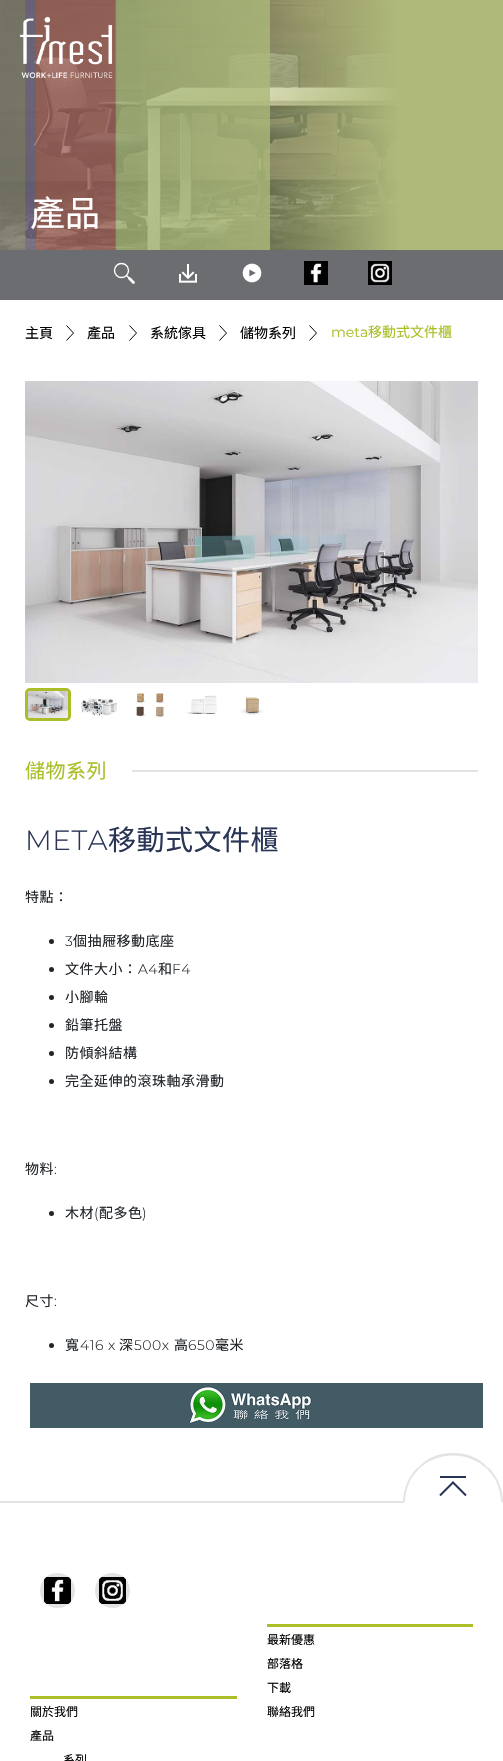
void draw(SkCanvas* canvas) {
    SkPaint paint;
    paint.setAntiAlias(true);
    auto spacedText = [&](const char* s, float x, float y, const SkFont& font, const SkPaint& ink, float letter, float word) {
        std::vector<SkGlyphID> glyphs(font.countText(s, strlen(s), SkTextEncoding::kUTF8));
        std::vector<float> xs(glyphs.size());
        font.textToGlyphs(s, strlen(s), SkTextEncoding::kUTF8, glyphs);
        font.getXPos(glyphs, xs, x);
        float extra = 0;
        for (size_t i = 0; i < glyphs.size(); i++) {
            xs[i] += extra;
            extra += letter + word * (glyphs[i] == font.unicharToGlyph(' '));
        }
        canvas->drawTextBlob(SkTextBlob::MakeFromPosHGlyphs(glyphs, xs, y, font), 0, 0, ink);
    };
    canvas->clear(0xFFFFFFFF);
    canvas->drawImageRect(SkImages::DeferredFromEncodedData(SkData::MakeFromFileName("img2.png")), SkRect::MakeXYWH(0, 0, 400, 250), SkSamplingOptions());
    canvas->drawImageRect(SkImages::DeferredFromEncodedData(SkData::MakeFromFileName("img3.png")), SkRect::MakeXYWH(0, 0, 270, 250), SkSamplingOptions());
    canvas->drawImageRect(SkImages::DeferredFromEncodedData(SkData::MakeFromFileName("img1.png")), SkRect::MakeXYWH(19, 16, 94, 63), SkSamplingOptions());
    paint.setColor(0xFFAFB97A);
    canvas->drawRect(SkRect::MakeXYWH(402, 0, 101, 250), paint);
    {
        const SkColor colors[] = {0x00AFB97A, 0xFFAFB97A};
        const float stops[] = {0, 1};
        const SkPoint ends[] = {{122, 125}, {402, 125}};
        paint.setShader(SkGradientShader::MakeLinear(ends, colors, stops, 2, SkTileMode::kClamp));
        paint.setAlpha(255);
    }
    canvas->drawRect(SkRect::MakeXYWH(140, 0, 262, 250), paint);
    SkFont font1(fontMgr->matchFamilyStyle("Noto Sans CJK HK", SkFontStyle::Normal()), 35);
    font1.setSubpixel(true);
    paint.setShader(nullptr);
    paint.setColor(0xFFFFFFFF);
    canvas->drawString("產品", 30, 226, font1, paint);
    paint.setColor(0xFF6C6D70);
    canvas->drawRect(SkRect::MakeXYWH(0, 250, 503, 50), paint);
    paint.setStyle(SkPaint::kStroke_Style);
    paint.setStrokeWidth(1.4f);
    paint.setColor(0xFFFFFFFF);
    canvas->drawCircle(121.5f, 270.5f, 7, paint);
    canvas->drawPath(SkPathBuilder().moveTo(126.5f, 275.5f).lineTo(129.5f, 278.5f).detach(), paint);
    paint.setStrokeWidth(2.8f);
    paint.setStrokeCap(SkPaint::kRound_Cap);
    canvas->drawPath(SkPathBuilder().moveTo(133.5f, 282.5f).lineTo(129.5f, 278.5f).detach(), paint);
    canvas->drawImageRect(SkImages::DeferredFromEncodedData(SkData::MakeFromFileName("img4.png")), SkRect::MakeXYWH(179, 264, 18, 19), SkSamplingOptions());
    canvas->drawImageRect(SkImages::DeferredFromEncodedData(SkData::MakeFromFileName("img5.png")), SkRect::MakeXYWH(242, 263, 20, 20), SkSamplingOptions());
    canvas->drawImageRect(SkImages::DeferredFromEncodedData(SkData::MakeFromFileName("img6.png")), SkRect::MakeXYWH(304, 261, 24, 24), SkSamplingOptions());
    canvas->drawImageRect(SkImages::DeferredFromEncodedData(SkData::MakeFromFileName("img7.png")), SkRect::MakeXYWH(368, 261, 24, 24), SkSamplingOptions());
    SkFont font2(fontMgr->matchFamilyStyle("Noto Sans CJK HK", SkFontStyle::Normal()), 14);
    font2.setSubpixel(true);
    paint.setStyle(SkPaint::kFill_Style);
    paint.setColor(0xFF000000);
    canvas->drawString("主頁", 25, 338, font2, paint);
    paint.setStyle(SkPaint::kStroke_Style);
    paint.setStrokeWidth(1);
    paint.setStrokeCap(SkPaint::kButt_Cap);
    canvas->drawPath(SkPathBuilder().moveTo(66.5f, 340.5f).lineTo(73.5f, 333).lineTo(66.5f, 325.5f).detach(), paint);
    paint.setStyle(SkPaint::kFill_Style);
    canvas->drawString("產品", 87, 338, font2, paint);
    paint.setStyle(SkPaint::kStroke_Style);
    canvas->drawPath(SkPathBuilder().moveTo(129.5f, 340.5f).lineTo(136.5f, 333).lineTo(129.5f, 325.5f).detach(), paint);
    paint.setStyle(SkPaint::kFill_Style);
    canvas->drawString("系統傢具", 150, 338, font2, paint);
    paint.setStyle(SkPaint::kStroke_Style);
    canvas->drawPath(SkPathBuilder().moveTo(219.5f, 340.5f).lineTo(226.5f, 333).lineTo(219.5f, 325.5f).detach(), paint);
    paint.setStyle(SkPaint::kFill_Style);
    canvas->drawString("儲物系列", 240, 338, font2, paint);
    paint.setStyle(SkPaint::kStroke_Style);
    canvas->drawPath(SkPathBuilder().moveTo(309.5f, 340.5f).lineTo(316.5f, 333).lineTo(309.5f, 325.5f).detach(), paint);
    SkFont font3(fontMgr->matchFamilyStyle("Montserrat", SkFontStyle::Normal()), 14);
    font3.setSubpixel(true);
    paint.setStyle(SkPaint::kFill_Style);
    paint.setColor(0xFFABBD27);
    canvas->drawString("meta", 331, 337, font3, paint);
    canvas->drawString("移動式文件櫃", 368, 337, font2, paint);
    canvas->drawImageRect(SkImages::DeferredFromEncodedData(SkData::MakeFromFileName("img8.png")), SkRect::MakeXYWH(25, 381, 453, 302), SkSamplingOptions());
    paint.setStyle(SkPaint::kStroke_Style);
    paint.setStrokeWidth(3);
    canvas->drawRoundRect(SkRect::MakeXYWH(26.5f, 689.5f, 43, 30), 3.5f, 3.5f, paint);
    canvas->drawImageRect(SkImages::DeferredFromEncodedData(SkData::MakeFromFileName("img9.png")), SkRect::MakeXYWH(28, 691, 40, 27), SkSamplingOptions());
    canvas->drawImageRect(SkImages::DeferredFromEncodedData(SkData::MakeFromFileName("img10.png")), SkRect::MakeXYWH(81, 698, 36, 18), SkSamplingOptions());
    canvas->drawImageRect(SkImages::DeferredFromEncodedData(SkData::MakeFromFileName("img11.png")), SkRect::MakeXYWH(135, 693, 30, 25), SkSamplingOptions());
    canvas->drawImageRect(SkImages::DeferredFromEncodedData(SkData::MakeFromFileName("img12.png")), SkRect::MakeXYWH(186, 695, 31, 19), SkSamplingOptions());
    canvas->drawImageRect(SkImages::DeferredFromEncodedData(SkData::MakeFromFileName("img13.png")), SkRect::MakeXYWH(240, 697, 24, 18), SkSamplingOptions());
    SkFont font4(fontMgr->matchFamilyStyle("Noto Sans CJK HK", SkFontStyle::Normal()), 20);
    font4.setSubpixel(true);
    paint.setStyle(SkPaint::kFill_Style);
    spacedText("儲物系列", 25, 778, font4, paint, 0.5f, 0);
    paint.setColor(0xFFE3E3E3);
    canvas->drawRect(SkRect::MakeXYWH(132, 770, 346, 2), paint);
    SkFont font5(fontMgr->matchFamilyStyle("Montserrat", SkFontStyle(300, SkFontStyle::kNormal_Width, SkFontStyle::kUpright_Slant)), 28);
    font5.setSubpixel(true);
    paint.setColor(0xFF293456);
    spacedText("META", 25, 850, font5, paint, 0.5f, 0);
    SkFont font6(fontMgr->matchFamilyStyle("Noto Sans CJK HK", SkFontStyle::Normal()), 28);
    font6.setSubpixel(true);
    spacedText("移動式文件櫃", 108, 850, font6, paint, 0.5f, 0);
    paint.setColor(0xFF212529);
    spacedText("特點：", 25, 902, font2, paint, 0.5f, 0);
    canvas->drawCircle(51.5f, 941.5f, 2.5f, paint);
    SkFont font7(fontMgr->matchFamilyStyle("Montserrat", SkFontStyle(300, SkFontStyle::kNormal_Width, SkFontStyle::kUpright_Slant)), 14);
    font7.setSubpixel(true);
    spacedText("3", 65, 946, font7, paint, 0.5f, 0);
    spacedText("個抽屜移動底座", 73, 946, font2, paint, 0.5f, 0);
    canvas->drawCircle(51.5f, 969.5f, 2.5f, paint);
    spacedText("文件大小：", 65, 974, font2, paint, 0.5f, 0);
    spacedText("A4", 138, 974, font7, paint, 0.5f, 0);
    spacedText("和", 158, 974, font2, paint, 0.5f, 0);
    spacedText("F4", 172, 974, font7, paint, 0.5f, 0);
    canvas->drawCircle(51.5f, 997.5f, 2.5f, paint);
    spacedText("小腳輪", 65, 1002, font2, paint, 0.5f, 0);
    canvas->drawCircle(51.5f, 1025.5f, 2.5f, paint);
    spacedText("鉛筆托盤", 65, 1030, font2, paint, 0.5f, 0);
    canvas->drawCircle(51.5f, 1053.5f, 2.5f, paint);
    spacedText("防傾斜結構", 65, 1058, font2, paint, 0.5f, 0);
    canvas->drawCircle(51.5f, 1081.5f, 2.5f, paint);
    spacedText("完全延伸的滾珠軸承滑動", 65, 1086, font2, paint, 0.5f, 0);
    spacedText("物料", 25, 1174, font2, paint, 0.5f, 0);
    spacedText(":", 54, 1174, font7, paint, 0.5f, 0);
    canvas->drawCircle(51.5f, 1213.5f, 2.5f, paint);
    spacedText("木材", 65, 1218, font2, paint, 0.5f, 0);
    spacedText("(", 94, 1218, font7, paint, 0.5f, 0);
    spacedText("配多色", 99, 1218, font2, paint, 0.5f, 0);
    spacedText(")", 142, 1218, font7, paint, 0.5f, 0);
    spacedText("尺寸", 25, 1306, font2, paint, 0.5f, 0);
    spacedText(":", 54, 1306, font7, paint, 0.5f, 0);
    canvas->drawCircle(51.5f, 1345.5f, 2.5f, paint);
    spacedText("寬", 65, 1350, font2, paint, 0.5f, 0);
    spacedText("416 x", 80, 1350, font7, paint, 0.5f, 0);
    spacedText("深", 119, 1350, font2, paint, 0.5f, 0);
    spacedText("500x", 134, 1350, font7, paint, 0.5f, 0);
    spacedText("高", 174, 1350, font2, paint, 0.5f, 0);
    spacedText("650", 188, 1350, font7, paint, 0.5f, 0);
    spacedText("毫米", 215, 1350, font2, paint, 0.5f, 0);
    paint.setColor(0xFF435B65);
    canvas->drawRect(SkRect::MakeXYWH(30, 1383, 453, 45), paint);
    canvas->drawImageRect(SkImages::DeferredFromEncodedData(SkData::MakeFromFileName("img14.png")), SkRect::MakeXYWH(189, 1386, 123, 38), SkSamplingOptions());
    paint.setColor(0xFFE3E3E3);
    canvas->drawRect(SkRect::MakeXYWH(0, 1501, 503, 2), paint);
    paint.setStyle(SkPaint::kStroke_Style);
    paint.setStrokeWidth(2);
    paint.setColor(0xFF2A3456);
    canvas->drawPath(SkPathBuilder().moveTo(466, 1495.5f).lineTo(453, 1482.5f).lineTo(440, 1495.5f).detach(), paint);
    paint.setStyle(SkPaint::kFill_Style);
    canvas->drawRect(SkRect::MakeXYWH(440, 1476, 26, 2), paint);
    paint.setColor(0xFFE3E3E3);
    canvas->drawPath(SkPathBuilder().moveTo(453, 1453).cubicTo(439, 1453, 426, 1458, 418, 1468).lineTo(419, 1469).cubicTo(437, 1451, 469, 1451, 487, 1469).lineTo(488, 1468).cubicTo(480, 1458, 467, 1453, 453, 1453).close().detach(), paint);
    canvas->drawPath(SkPathBuilder().moveTo(488.5f, 1467.5f).cubicTo(497.5f, 1476.5f, 503, 1489, 503, 1503).lineTo(501, 1501).cubicTo(500.5f, 1488.5f, 495.5f, 1477, 487, 1469).close().detach(), paint);
    paint.setColor(0xFFFFFFFF);
    canvas->drawPath(SkPathBuilder(SkPathFillType::kEvenOdd).moveTo(503, 1503).lineTo(501, 1501).lineTo(405, 1501).lineTo(403, 1503).close().moveTo(405, 1501).lineTo(405, 1503).close().moveTo(501, 1501).lineTo(501, 1503).close().detach(), paint);
    paint.setColor(0xFFE3E3E3);
    canvas->drawPath(SkPathBuilder().moveTo(403, 1503).lineTo(405, 1501).cubicTo(405.5f, 1488.5f, 410.5f, 1477, 419, 1469).lineTo(417.5f, 1467.5f).cubicTo(408.5f, 1476.5f, 403, 1489, 403, 1503).close().detach(), paint);
    canvas->drawCircle(57.5f, 1590.5f, 17.5f, paint);
    canvas->drawImageRect(SkImages::DeferredFromEncodedData(SkData::MakeFromFileName("img15.png")), SkRect::MakeXYWH(44, 1577, 27, 27), SkSamplingOptions());
    canvas->drawCircle(112.5f, 1590.5f, 17.5f, paint);
    canvas->drawImageRect(SkImages::DeferredFromEncodedData(SkData::MakeFromFileName("img16.png")), SkRect::MakeXYWH(99, 1577, 27, 27), SkSamplingOptions());
    paint.setColor(0xFFABBD27);
    canvas->drawRect(SkRect::MakeXYWH(267, 1624, 206, 3), paint);
    SkFont font8(fontMgr->matchFamilyStyle("Noto Sans CJK HK", SkFontStyle::Normal()), 12);
    font8.setSubpixel(true);
    paint.setColor(0xFF000000);
    canvas->drawString("最新優惠", 267, 1644, font8, paint);
    canvas->drawString("部落格", 267, 1668, font8, paint);
    canvas->drawString("下載", 267, 1692, font8, paint);
    canvas->drawString("聯絡我們", 267, 1716, font8, paint);
    paint.setColor(0xFFABBD27);
    canvas->drawRect(SkRect::MakeXYWH(30, 1696, 207, 3), paint);
    paint.setColor(0xFF000000);
    canvas->drawString("關於我們", 30, 1716, font8, paint);
    canvas->drawString("產品", 30, 1740, font8, paint);
    canvas->drawString("系列", 63, 1764, font8, paint);
}
